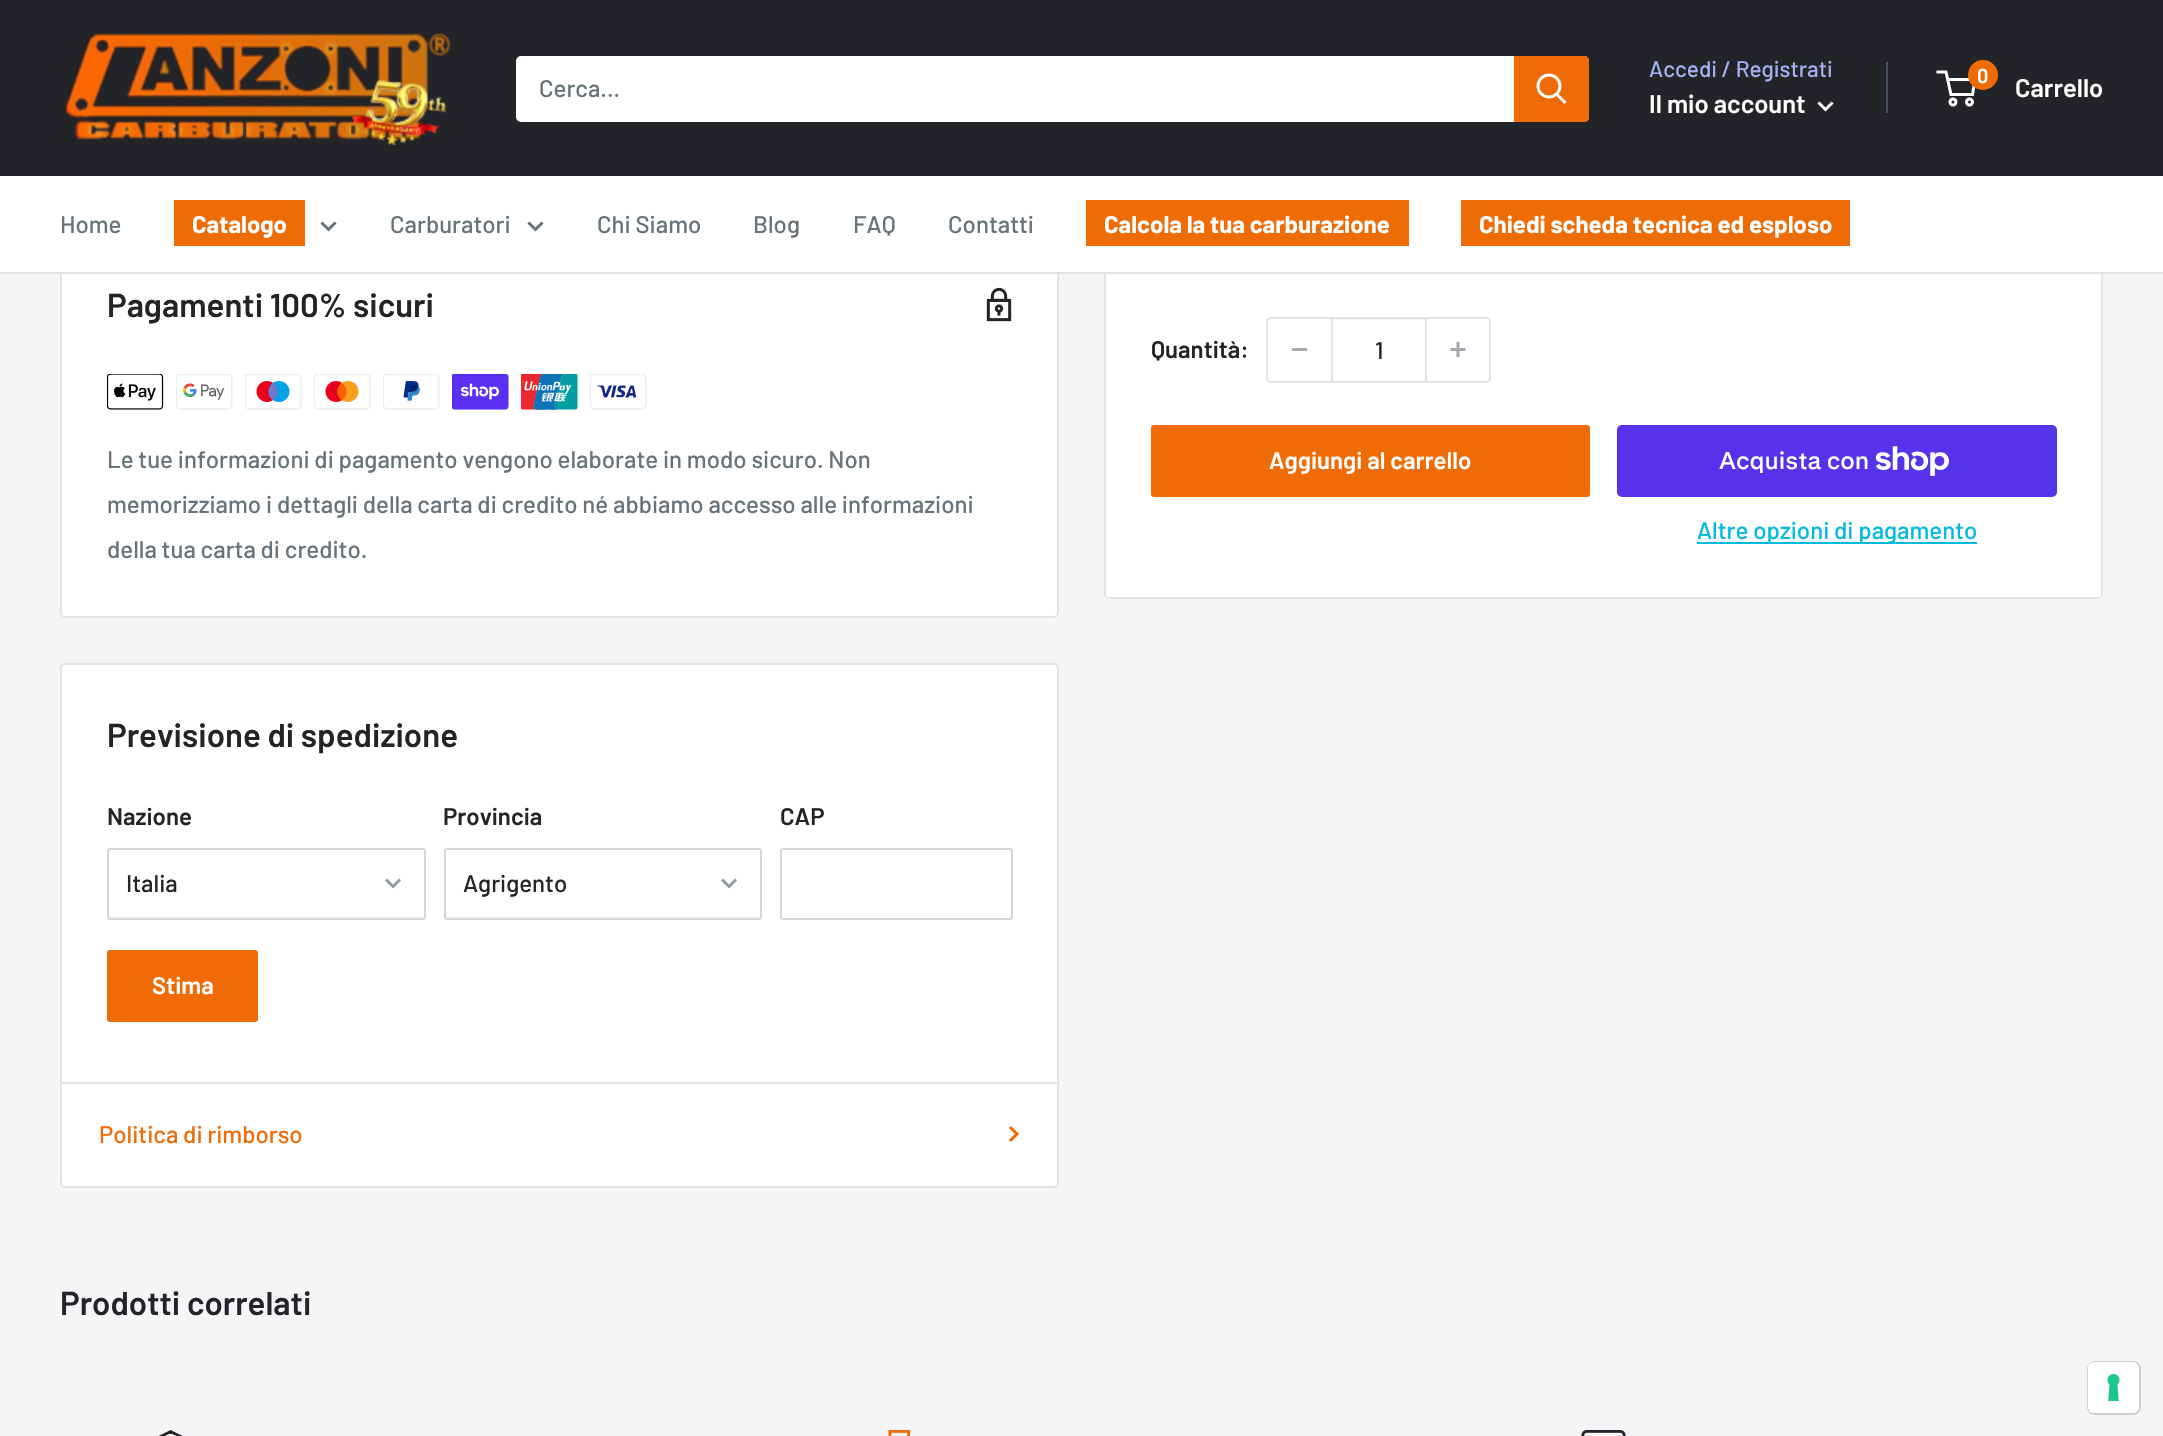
void draw(SkCanvas* canvas) {
    SkPaint paint;
    paint.setAntiAlias(true);
    canvas->clear(0xFFF3F5F6);
    paint.setColor(0xFFFFFFFF);
    canvas->drawRoundRect(SkRect::MakeXYWH(1105, 1, 997, 597), 4, 4, paint);
    paint.setStyle(SkPaint::kStroke_Style);
    paint.setStrokeWidth(2);
    paint.setColor(0xFFE1E3E4);
    canvas->drawRoundRect(SkRect::MakeXYWH(1105, 1, 997, 597), 4, 4, paint);
    paint.setStyle(SkPaint::kFill_Style);
    paint.setColor(0xFF232428);
    canvas->drawRect(SkRect::MakeXYWH(0, 0, 2163, 176), paint);
    canvas->drawImageRect(SkImages::DeferredFromEncodedData(SkData::MakeFromFileName("img1.png")), SkRect::MakeXYWH(65, 32, 386, 113), SkSamplingOptions());
    paint.setColor(0xFFFFFFFF);
    canvas->drawRoundRect(SkRect::MakeXYWH(516, 56, 1073, 66), 5, 5, paint);
    SkFont font1(fontMgr->matchFamilyStyle("Barlow", SkFontStyle(500, SkFontStyle::kNormal_Width, SkFontStyle::kUpright_Slant)), 24);
    font1.setSubpixel(true);
    paint.setColor(0xFF677279);
    canvas->drawString("Cerca...", 539, 97, font1, paint);
    paint.setColor(0xFFEF6B06);
    canvas->drawPath(SkPathBuilder().moveTo(1514, 56).lineTo(1584, 56).cubicTo(1587, 56, 1589, 58, 1589, 61).lineTo(1589, 117).cubicTo(1589, 120, 1587, 122, 1584, 122).lineTo(1514, 122).close().detach(), paint);
    paint.setStyle(SkPaint::kStroke_Style);
    paint.setStrokeWidth(3);
    paint.setStrokeCap(SkPaint::kSquare_Cap);
    paint.setColor(0xFFFFFFFF);
    canvas->drawPath(SkPathBuilder().moveTo(1564.5f, 102).lineTo(1557, 94.5f).detach(), paint);
    paint.setStrokeCap(SkPaint::kButt_Cap);
    canvas->drawCircle(1549, 86, 11, paint);
    SkFont font2(fontMgr->matchFamilyStyle("Barlow", SkFontStyle(500, SkFontStyle::kNormal_Width, SkFontStyle::kUpright_Slant)), 22.5f);
    font2.setSubpixel(true);
    paint.setStyle(SkPaint::kFill_Style);
    paint.setColor(0xFFA3AFEF);
    canvas->drawString("Accedi / Registrati", 1649, 77, font2, paint);
    paint.setColor(0xFF494E64);
    canvas->drawRect(SkRect::MakeXYWH(1886, 62, 2, 51), paint);
    SkFont font3(fontMgr->matchFamilyStyle("Barlow", SkFontStyle(600, SkFontStyle::kNormal_Width, SkFontStyle::kUpright_Slant)), 25.5f);
    font3.setSubpixel(true);
    paint.setColor(0xFFFFFFFF);
    canvas->drawString("Il mio account", 1649, 113, font3, paint);
    paint.setStyle(SkPaint::kStroke_Style);
    paint.setStrokeCap(SkPaint::kSquare_Cap);
    canvas->drawPath(SkPathBuilder().moveTo(1831.5f, 103.5f).lineTo(1825.5f, 109.5f).lineTo(1819.5f, 103.5f).detach(), paint);
    paint.setStrokeCap(SkPaint::kButt_Cap);
    canvas->drawCircle(1953, 102, 3, paint);
    canvas->drawCircle(1969.5f, 102, 3, paint);
    canvas->drawPath(SkPathBuilder().moveTo(1947.5f, 79.5f).lineTo(1975, 79.5f).lineTo(1972.5f, 94.5f).lineTo(1951, 94.5f).lineTo(1946, 72).lineTo(1936.5f, 72).detach(), paint);
    paint.setStyle(SkPaint::kFill_Style);
    paint.setColor(0xFFEF6B06);
    canvas->drawCircle(1983, 75, 15, paint);
    SkFont font4(fontMgr->matchFamilyStyle("Barlow", SkFontStyle(600, SkFontStyle::kNormal_Width, SkFontStyle::kUpright_Slant)), 20);
    font4.setSubpixel(true);
    paint.setColor(0xFFFFFFFF);
    canvas->drawString("0", 1977, 83, font4, paint);
    canvas->drawString("Carrello", 2015, 97, font3, paint);
    canvas->drawRoundRect(SkRect::MakeXYWH(61, 234, 997, 383), 4, 4, paint);
    paint.setStyle(SkPaint::kStroke_Style);
    paint.setStrokeWidth(2);
    paint.setColor(0xFFE1E3E4);
    canvas->drawRoundRect(SkRect::MakeXYWH(61, 234, 997, 383), 4, 4, paint);
    paint.setStyle(SkPaint::kFill_Style);
    paint.setColor(0xFFFFFFFF);
    canvas->drawRect(SkRect::MakeXYWH(0, 176, 2163, 96), paint);
    paint.setColor(0xFFE1E3E4);
    canvas->drawRect(SkRect::MakeXYWH(0, 272, 2163, 2), paint);
    paint.setColor(0xFF677279);
    canvas->drawString("Home", 60, 233, font1, paint);
    paint.setColor(0xFFED6C05);
    canvas->drawRect(SkRect::MakeXYWH(174, 200, 131, 46), paint);
    SkFont font5(fontMgr->matchFamilyStyle("Barlow", SkFontStyle::Bold()), 24);
    font5.setSubpixel(true);
    paint.setColor(0xFFFFFFFF);
    canvas->drawString("Catalogo", 192, 233, font5, paint);
    paint.setStyle(SkPaint::kStroke_Style);
    paint.setStrokeWidth(3);
    paint.setStrokeCap(SkPaint::kSquare_Cap);
    paint.setColor(0xFF677279);
    canvas->drawPath(SkPathBuilder().moveTo(334.5f, 223.5f).lineTo(328.5f, 229.5f).lineTo(322.5f, 223.5f).detach(), paint);
    paint.setStyle(SkPaint::kFill_Style);
    canvas->drawString("Carburatori", 390, 233, font1, paint);
    paint.setStyle(SkPaint::kStroke_Style);
    canvas->drawPath(SkPathBuilder().moveTo(541.5f, 223.5f).lineTo(535.5f, 229.5f).lineTo(529.5f, 223.5f).detach(), paint);
    paint.setStyle(SkPaint::kFill_Style);
    canvas->drawString("Chi Siamo", 597, 233, font1, paint);
    canvas->drawString("Blog", 753, 233, font1, paint);
    canvas->drawString("FAQ", 853, 233, font1, paint);
    canvas->drawString("Contatti", 948, 233, font1, paint);
    paint.setColor(0xFFED6C05);
    canvas->drawRect(SkRect::MakeXYWH(1086, 200, 323, 46), paint);
    paint.setColor(0xFFFFFFFF);
    canvas->drawString("Calcola la tua carburazione", 1104, 233, font5, paint);
    paint.setColor(0xFFED6C05);
    canvas->drawRect(SkRect::MakeXYWH(1461, 200, 389, 46), paint);
    paint.setColor(0xFFFFFFFF);
    canvas->drawString("Chiedi scheda tecnica ed esploso", 1479, 233, font5, paint);
    SkFont font6(fontMgr->matchFamilyStyle("Barlow", SkFontStyle(600, SkFontStyle::kNormal_Width, SkFontStyle::kUpright_Slant)), 33);
    font6.setSubpixel(true);
    paint.setColor(0xFF232428);
    canvas->drawString("Pagamenti 100% sicuri", 107, 317, font6, paint);
    canvas->drawImageRect(SkImages::DeferredFromEncodedData(SkData::MakeFromFileName("img2.png")), SkRect::MakeXYWH(986, 287, 26, 35), SkSamplingOptions());
    canvas->drawImageRect(SkImages::DeferredFromEncodedData(SkData::MakeFromFileName("img3.png")), SkRect::MakeXYWH(107, 374, 57, 36), SkSamplingOptions());
    canvas->drawImageRect(SkImages::DeferredFromEncodedData(SkData::MakeFromFileName("img4.png")), SkRect::MakeXYWH(176, 374, 57, 36), SkSamplingOptions());
    canvas->drawImageRect(SkImages::DeferredFromEncodedData(SkData::MakeFromFileName("img5.png")), SkRect::MakeXYWH(245, 374, 57, 36), SkSamplingOptions());
    canvas->drawImageRect(SkImages::DeferredFromEncodedData(SkData::MakeFromFileName("img6.png")), SkRect::MakeXYWH(314, 374, 57, 36), SkSamplingOptions());
    canvas->drawImageRect(SkImages::DeferredFromEncodedData(SkData::MakeFromFileName("img7.png")), SkRect::MakeXYWH(383, 374, 57, 36), SkSamplingOptions());
    canvas->drawImageRect(SkImages::DeferredFromEncodedData(SkData::MakeFromFileName("img8.png")), SkRect::MakeXYWH(452, 374, 57, 36), SkSamplingOptions());
    canvas->drawImageRect(SkImages::DeferredFromEncodedData(SkData::MakeFromFileName("img9.png")), SkRect::MakeXYWH(521, 374, 57, 36), SkSamplingOptions());
    canvas->drawImageRect(SkImages::DeferredFromEncodedData(SkData::MakeFromFileName("img10.png")), SkRect::MakeXYWH(590, 374, 57, 36), SkSamplingOptions());
    paint.setColor(0xFF677279);
    canvas->drawString("Le tue informazioni di pagamento vengono elaborate in modo sicuro. Non", 107, 468, font1, paint);
    canvas->drawString("memorizziamo i dettagli della carta di credito né abbiamo accesso alle informazioni", 107, 513, font1, paint);
    canvas->drawString("della tua carta di credito.", 107, 558, font1, paint);
    SkFont font7(fontMgr->matchFamilyStyle("Barlow", SkFontStyle(600, SkFontStyle::kNormal_Width, SkFontStyle::kUpright_Slant)), 24);
    font7.setSubpixel(true);
    paint.setColor(0xFF232428);
    canvas->drawString("Quantità:", 1151, 358, font7, paint);
    paint.setStyle(SkPaint::kStroke_Style);
    paint.setStrokeWidth(2);
    paint.setStrokeCap(SkPaint::kButt_Cap);
    paint.setColor(0xFFE1E3E4);
    canvas->drawRoundRect(SkRect::MakeXYWH(1267, 318, 223, 64), 4, 4, paint);
    paint.setStyle(SkPaint::kFill_Style);
    paint.setColor(0xFFA4AAAF);
    canvas->drawRect(SkRect::MakeXYWH(1292, 348, 15, 3), paint);
    paint.setColor(0x66E1E3E4);
    canvas->drawRect(SkRect::MakeXYWH(1332, 319, 93, 1), paint);
    paint.setColor(0xFFE1E3E4);
    canvas->drawRect(SkRect::MakeXYWH(1425, 318, 2, 63), paint);
    canvas->drawRect(SkRect::MakeXYWH(1331, 318, 2, 63), paint);
    paint.setColor(0xFF232428);
    canvas->drawString("1", 1375, 359, font1, paint);
    canvas->drawImageRect(SkImages::DeferredFromEncodedData(SkData::MakeFromFileName("img11.png")), SkRect::MakeXYWH(1450, 342, 16, 15), SkSamplingOptions());
    paint.setColor(0xFFEF6B06);
    canvas->drawRoundRect(SkRect::MakeXYWH(1151, 425, 439, 72), 3, 3, paint);
    paint.setColor(0xFFFFFFFF);
    canvas->drawString("Aggiungi al carrello", 1269, 469, font7, paint);
    paint.setColor(0xFF5433EB);
    canvas->drawRoundRect(SkRect::MakeXYWH(1617, 425, 440, 72), 5, 5, paint);
    SkFont font8(fontMgr->matchFamilyStyle("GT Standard", SkFontStyle(500, SkFontStyle::kNormal_Width, SkFontStyle::kUpright_Slant)), 24);
    font8.setSubpixel(true);
    paint.setColor(0xFFFFFFFF);
    canvas->drawString("Acquista con", 1719, 469, font8, paint);
    canvas->drawImageRect(SkImages::DeferredFromEncodedData(SkData::MakeFromFileName("img12.png")), SkRect::MakeXYWH(1875, 446, 74, 30), SkSamplingOptions());
    paint.setColor(0xFF00BADB);
    canvas->drawRect(SkRect::MakeXYWH(1697, 542, 280, 2), paint);
    canvas->drawString("Altre opzioni di pagamento", 1697, 539, font1, paint);
    paint.setColor(0xFFFFFFFF);
    canvas->drawRoundRect(SkRect::MakeXYWH(61, 664, 997, 523), 4, 4, paint);
    paint.setStyle(SkPaint::kStroke_Style);
    paint.setColor(0xFFE1E3E4);
    canvas->drawRoundRect(SkRect::MakeXYWH(61, 664, 997, 523), 4, 4, paint);
    paint.setStyle(SkPaint::kFill_Style);
    paint.setColor(0xFF232428);
    canvas->drawString("Previsione di spedizione", 107, 747, font6, paint);
    canvas->drawString("Nazione", 107, 825, font7, paint);
    paint.setColor(0xFFF6F7F7);
    canvas->drawPath(SkPathBuilder().moveTo(108, 915).lineTo(108, 916).cubicTo(108, 917, 109, 918, 110, 918).lineTo(424, 918).cubicTo(424, 918, 425, 917, 425, 916).lineTo(425, 850).cubicTo(425, 850, 425, 849, 424, 849).lineTo(424, 915).cubicTo(424, 916, 424, 916, 423, 916).lineTo(110, 916).cubicTo(109, 916, 108, 916, 108, 915).close().detach(), paint);
    paint.setStyle(SkPaint::kStroke_Style);
    paint.setColor(0xFFD4D6D8);
    canvas->drawRoundRect(SkRect::MakeXYWH(108, 849, 317, 70), 2, 2, paint);
    paint.setStyle(SkPaint::kFill_Style);
    paint.setColor(0xFF232428);
    canvas->drawString("Italia", 126, 892, font1, paint);
    paint.setStyle(SkPaint::kStroke_Style);
    paint.setStrokeWidth(3);
    paint.setStrokeCap(SkPaint::kSquare_Cap);
    paint.setColor(0xFF959CA1);
    canvas->drawPath(SkPathBuilder().moveTo(399, 880.5f).lineTo(393, 886.5f).lineTo(387, 880.5f).detach(), paint);
    paint.setStyle(SkPaint::kFill_Style);
    paint.setColor(0xFF232428);
    canvas->drawString("Provincia", 443, 825, font7, paint);
    paint.setColor(0xFFF6F7F7);
    canvas->drawPath(SkPathBuilder().moveTo(446, 915).lineTo(446, 916).cubicTo(446, 917, 447, 918, 448, 918).lineTo(760, 918).cubicTo(760, 918, 761, 917, 761, 916).lineTo(761, 850).cubicTo(761, 850, 761, 849, 760, 849).lineTo(760, 915).cubicTo(760, 916, 760, 916, 759, 916).lineTo(447, 916).cubicTo(446, 916, 446, 916, 446, 915).close().detach(), paint);
    paint.setStyle(SkPaint::kStroke_Style);
    paint.setStrokeWidth(2);
    paint.setStrokeCap(SkPaint::kButt_Cap);
    paint.setColor(0xFFD4D6D8);
    canvas->drawRoundRect(SkRect::MakeXYWH(445, 849, 316, 70), 2, 2, paint);
    paint.setStyle(SkPaint::kFill_Style);
    paint.setColor(0xFF232428);
    canvas->drawString("Agrigento", 463, 892, font1, paint);
    paint.setStyle(SkPaint::kStroke_Style);
    paint.setStrokeWidth(3);
    paint.setStrokeCap(SkPaint::kSquare_Cap);
    paint.setColor(0xFF959CA1);
    canvas->drawPath(SkPathBuilder().moveTo(735, 880.5f).lineTo(729, 886.5f).lineTo(723, 880.5f).detach(), paint);
    paint.setStyle(SkPaint::kFill_Style);
    paint.setColor(0xFF232428);
    canvas->drawString("CAP", 780, 825, font7, paint);
    paint.setColor(0xFFF8F8F8);
    canvas->drawPath(SkPathBuilder().moveTo(783, 850).lineTo(1010, 850).lineTo(1011, 852).cubicTo(1011, 851, 1011, 849, 1010, 849).lineTo(784, 849).lineTo(782, 849).lineTo(782, 852).cubicTo(782, 851, 782, 850, 783, 850).close().detach(), paint);
    paint.setStyle(SkPaint::kStroke_Style);
    paint.setStrokeWidth(2);
    paint.setStrokeCap(SkPaint::kButt_Cap);
    paint.setColor(0xFFD4D6D8);
    canvas->drawRoundRect(SkRect::MakeXYWH(781, 849, 231, 70), 2, 2, paint);
    paint.setStyle(SkPaint::kFill_Style);
    paint.setColor(0xFFEF6B06);
    canvas->drawRoundRect(SkRect::MakeXYWH(107, 950, 151, 72), 3, 3, paint);
    paint.setColor(0xFFFFFFFF);
    canvas->drawString("Stima", 152, 994, font7, paint);
    paint.setColor(0xFFE1E3E4);
    canvas->drawRect(SkRect::MakeXYWH(62, 1082, 996, 2), paint);
    paint.setColor(0xFFEF6B06);
    canvas->drawString("Politica di rimborso", 99, 1143, font1, paint);
    paint.setStyle(SkPaint::kStroke_Style);
    paint.setStrokeWidth(3);
    paint.setStrokeCap(SkPaint::kSquare_Cap);
    canvas->drawPath(SkPathBuilder().moveTo(1011, 1128).lineTo(1017, 1134).lineTo(1011, 1140).detach(), paint);
    paint.setStyle(SkPaint::kFill_Style);
    paint.setColor(0xFF232428);
    canvas->drawString("Prodotti correlati", 60, 1315, font6, paint);
    paint.setStyle(SkPaint::kStroke_Style);
    paint.setStrokeWidth(2);
    paint.setStrokeCap(SkPaint::kButt_Cap);
    paint.setColor(0xFFCFD0D1);
    canvas->drawRoundRect(SkRect::MakeXYWH(2088, 1362, 52, 52), 7, 7, paint);
    paint.setStyle(SkPaint::kFill_Style);
    paint.setColor(0xFFFFFFFF);
    canvas->drawRoundRect(SkRect::MakeXYWH(2088, 1362, 51, 51), 6, 6, paint);
    canvas->drawImageRect(SkImages::DeferredFromEncodedData(SkData::MakeFromFileName("img13.png")), SkRect::MakeXYWH(2107, 1374, 13, 27), SkSamplingOptions());
    paint.setStyle(SkPaint::kStroke_Style);
    paint.setStrokeWidth(2.8f);
    paint.setColor(0xFFEF6B06);
    canvas->drawPath(SkPathBuilder().moveTo(162, 1435.5f).lineTo(184.5f, 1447).detach(), paint);
    paint.setStrokeCap(SkPaint::kSquare_Cap);
    paint.setColor(0xFF232428);
    canvas->drawPath(SkPathBuilder().moveTo(193, 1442.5f).lineTo(193, 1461.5f).lineTo(174.5f, 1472.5f).lineTo(152, 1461.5f).lineTo(152, 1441).lineTo(170.5f, 1431.5f).close().detach(), paint);
    canvas->drawImageRect(SkImages::DeferredFromEncodedData(SkData::MakeFromFileName("img14.png")), SkRect::MakeXYWH(888, 1430, 23, 6), SkSamplingOptions());
    canvas->drawImageRect(SkImages::DeferredFromEncodedData(SkData::MakeFromFileName("img15.png")), SkRect::MakeXYWH(1581, 1430, 45, 6), SkSamplingOptions());
}
